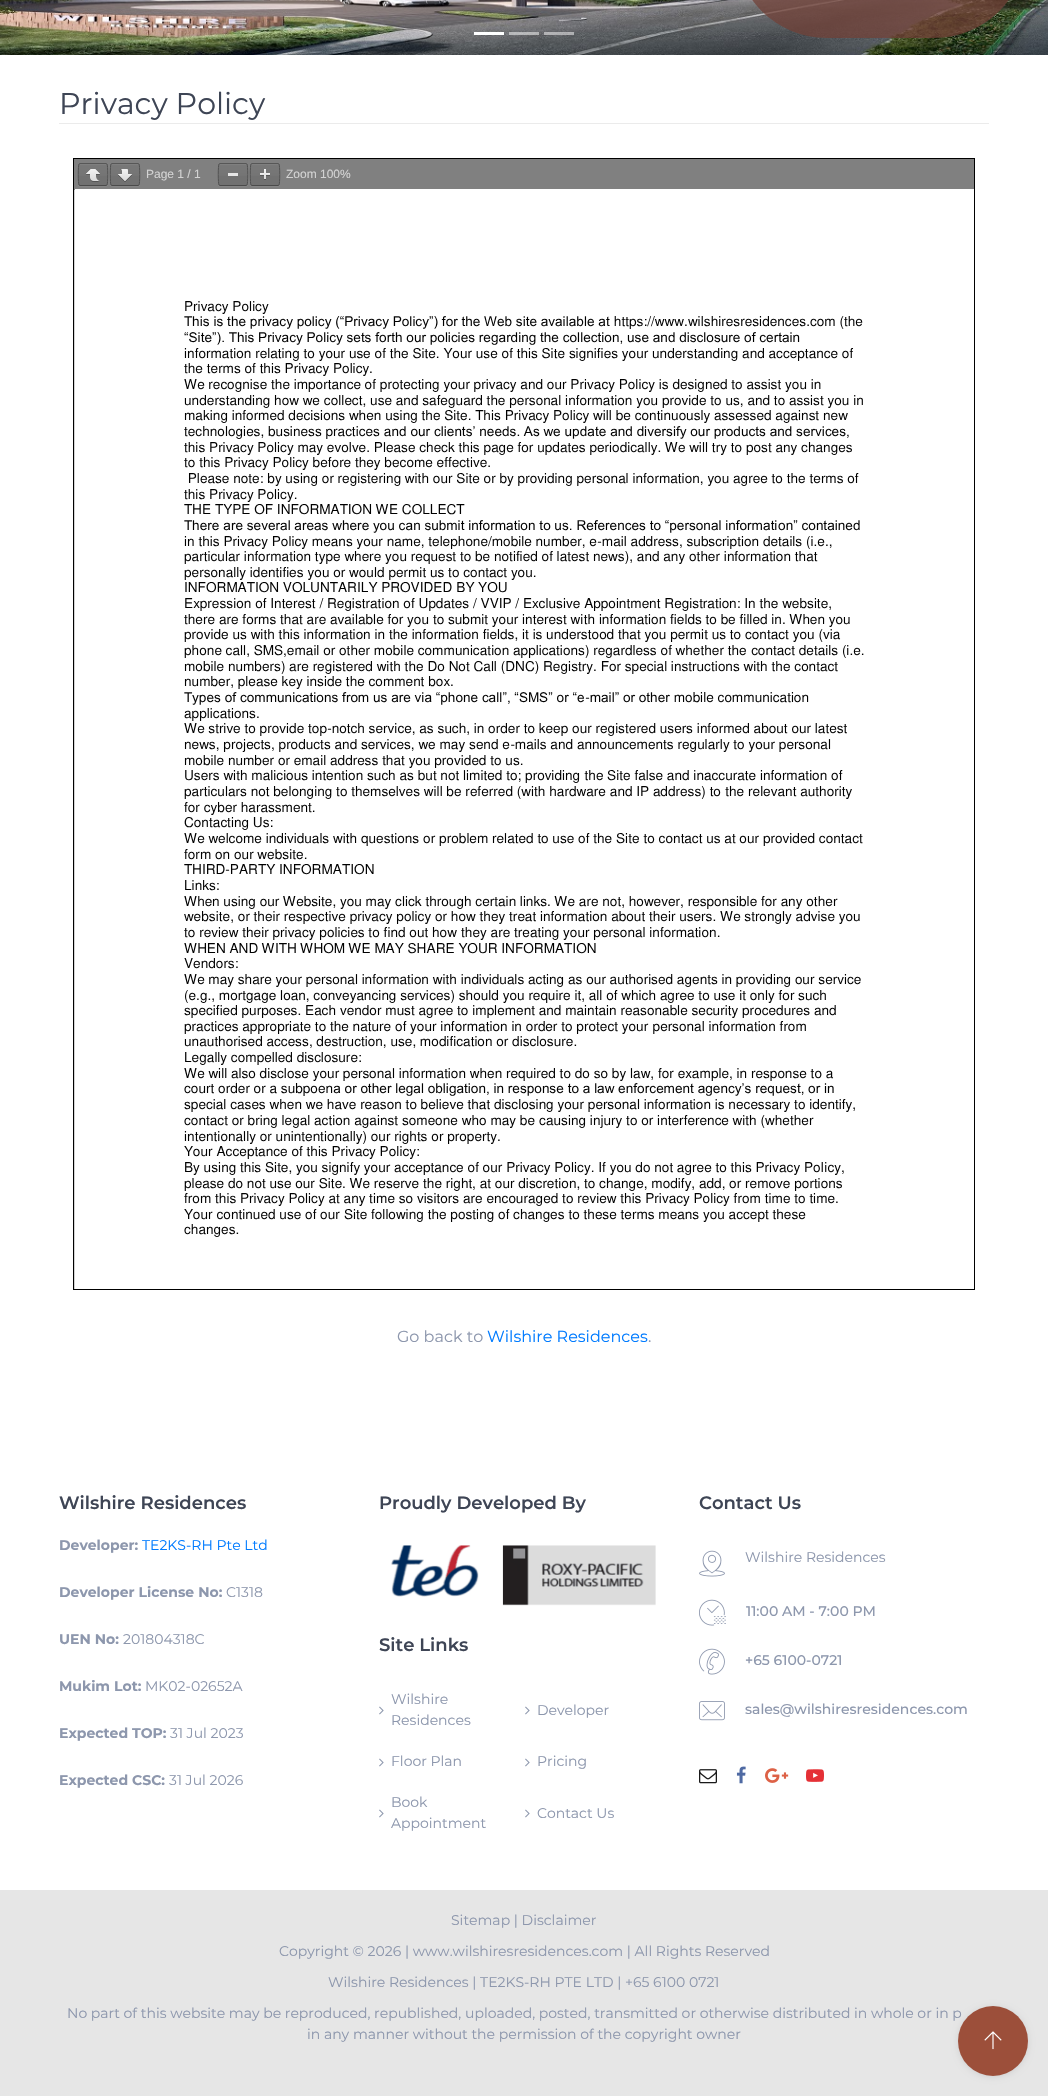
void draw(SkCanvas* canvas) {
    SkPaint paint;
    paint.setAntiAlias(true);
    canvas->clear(0xFFFFFFFF);
    canvas->drawImageRect(SkImages::DeferredFromEncodedData(SkData::MakeFromFileName("img1.png")), SkRect::MakeXYWH(0, 0, 1048, 55), SkSamplingOptions());
    paint.setColor(0xBF704037);
    canvas->drawRoundRect(SkRect::MakeXYWH(735, -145, 291, 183), 145, 145, paint);
    paint.setColor(0xFFFFFFFF);
    canvas->drawRect(SkRect::MakeXYWH(474, 32, 30, 3), paint);
    paint.setColor(0x80FFFFFF);
    canvas->drawRect(SkRect::MakeXYWH(509, 32, 30, 3), paint);
    canvas->drawRect(SkRect::MakeXYWH(544, 32, 30, 3), paint);
    SkFont font1(fontMgr->matchFamilyStyle("Montserrat", SkFontStyle::Normal()), 30);
    font1.setSubpixel(true);
    paint.setColor(0xFF3E4555);
    canvas->drawString("Privacy Policy", 59, 114, font1, paint);
    paint.setColor(0xFFEBEBEB);
    canvas->drawRect(SkRect::MakeXYWH(59, 123, 930, 1), paint);
    paint.setColor(0xFFD3D3D3);
    canvas->drawRect(SkRect::MakeXYWH(74, 190, 1, 1099), paint);
    paint.setStyle(SkPaint::kStroke_Style);
    paint.setStrokeWidth(1);
    paint.setColor(0xFF000000);
    canvas->drawRect(SkRect::MakeXYWH(73.5f, 158.5f, 901, 1131), paint);
    paint.setStyle(SkPaint::kFill_Style);
    paint.setColor(0xFF808080);
    canvas->drawRect(SkRect::MakeXYWH(74, 159, 900, 31), paint);
    paint.setColor(0xFF868686);
    canvas->drawPath(SkPathBuilder().moveTo(78, 184).cubicTo(78, 188, 80.5f, 187, 84.5f, 187).lineTo(101.5f, 187).cubicTo(105.5f, 187, 108, 188, 108, 184).cubicTo(108, 185, 107, 186, 106, 186).lineTo(80, 186).cubicTo(79, 186, 78, 185, 78, 184).close().detach(), paint);
    paint.setColor(0xFF717171);
    canvas->drawRoundRect(SkRect::MakeXYWH(79, 164, 28, 21), 1, 1, paint);
    {
        const SkColor colors[] = {0x0DFFFFFF, 0x00FFFFFF};
        const float stops[] = {0, 1};
        const SkPoint ends[] = {{93, 164}, {93, 185}};
        paint.setShader(SkGradientShader::MakeLinear(ends, colors, stops, 2, SkTileMode::kClamp));
        paint.setAlpha(255);
    }
    canvas->drawRect(SkRect::MakeXYWH(79, 164, 28, 12), paint);
    paint.setShader(nullptr);
    paint.setColor(0xFF7F7F7F);
    canvas->drawPath(SkPathBuilder().moveTo(80, 165).lineTo(107, 165).lineTo(107, 166).cubicTo(107, 163, 105, 164, 101.5f, 164).lineTo(84.5f, 164).cubicTo(81, 164, 79, 163, 79, 166).cubicTo(79, 165, 79, 165, 80, 165).close().detach(), paint);
    paint.setStyle(SkPaint::kStroke_Style);
    paint.setColor(0xFF575757);
    canvas->drawPath(SkPathBuilder().moveTo(79, 164).lineTo(80, 163.5f).lineTo(106, 163.5f).lineTo(107, 164).detach(), paint);
    paint.setColor(0xFF4F4F4F);
    canvas->drawPath(SkPathBuilder().moveTo(107, 164).cubicTo(108, 165, 108, 184, 107, 185).detach(), paint);
    paint.setColor(0xFF4A4A4A);
    canvas->drawPath(SkPathBuilder().moveTo(107, 185).lineTo(106, 185.5f).lineTo(80, 185.5f).lineTo(79, 185).detach(), paint);
    paint.setColor(0xFF4F4F4F);
    canvas->drawPath(SkPathBuilder().moveTo(79, 185).cubicTo(78, 184, 78, 165, 79, 164).detach(), paint);
    canvas->drawImageRect(SkImages::DeferredFromEncodedData(SkData::MakeFromFileName("img2.png")), SkRect::MakeXYWH(86, 169, 14, 13), SkSamplingOptions());
    paint.setStyle(SkPaint::kFill_Style);
    paint.setColor(0xFF868686);
    canvas->drawPath(SkPathBuilder().moveTo(110, 184).cubicTo(110, 188, 112.5f, 187, 116.5f, 187).lineTo(133.5f, 187).cubicTo(137.5f, 187, 140, 188, 140, 184).cubicTo(140, 185, 139, 186, 138, 186).lineTo(112, 186).cubicTo(111, 186, 110, 185, 110, 184).close().detach(), paint);
    paint.setColor(0xFF717171);
    canvas->drawRoundRect(SkRect::MakeXYWH(111, 164, 28, 21), 1, 1, paint);
    {
        const SkColor colors[] = {0x0DFFFFFF, 0x00FFFFFF};
        const float stops[] = {0, 1};
        const SkPoint ends[] = {{125, 164}, {125, 185}};
        paint.setShader(SkGradientShader::MakeLinear(ends, colors, stops, 2, SkTileMode::kClamp));
        paint.setAlpha(255);
    }
    canvas->drawRect(SkRect::MakeXYWH(111, 164, 28, 12), paint);
    paint.setShader(nullptr);
    paint.setColor(0xFF7F7F7F);
    canvas->drawPath(SkPathBuilder().moveTo(112, 165).lineTo(139, 165).lineTo(139, 166).cubicTo(139, 163, 137, 164, 133.5f, 164).lineTo(116.5f, 164).cubicTo(113, 164, 111, 163, 111, 166).cubicTo(111, 165, 111, 165, 112, 165).close().detach(), paint);
    paint.setStyle(SkPaint::kStroke_Style);
    paint.setColor(0xFF575757);
    canvas->drawPath(SkPathBuilder().moveTo(111, 164).lineTo(112, 163.5f).lineTo(138, 163.5f).lineTo(139, 164).detach(), paint);
    paint.setColor(0xFF4F4F4F);
    canvas->drawPath(SkPathBuilder().moveTo(139, 164).cubicTo(140, 165, 140, 184, 139, 185).detach(), paint);
    paint.setColor(0xFF4A4A4A);
    canvas->drawPath(SkPathBuilder().moveTo(139, 185).lineTo(138, 185.5f).lineTo(112, 185.5f).lineTo(111, 185).detach(), paint);
    paint.setColor(0xFF4F4F4F);
    canvas->drawPath(SkPathBuilder().moveTo(111, 185).cubicTo(110, 184, 110, 165, 111, 164).detach(), paint);
    canvas->drawImageRect(SkImages::DeferredFromEncodedData(SkData::MakeFromFileName("img3.png")), SkRect::MakeXYWH(118, 169, 14, 13), SkSamplingOptions());
    SkFont font2(fontMgr->matchFamilyStyle("Liberation Sans", SkFontStyle::Normal()), 12);
    font2.setSubpixel(true);
    paint.setStyle(SkPaint::kFill_Style);
    paint.setColor(0xFFD3D3D3);
    canvas->drawString("Page 1 / 1", 146, 178, font2, paint);
    paint.setColor(0xFF868686);
    canvas->drawPath(SkPathBuilder().moveTo(218, 184).cubicTo(218, 188, 220.5f, 187, 224.5f, 187).lineTo(241.5f, 187).cubicTo(245.5f, 187, 248, 188, 248, 184).cubicTo(248, 185, 247, 186, 246, 186).lineTo(220, 186).cubicTo(219, 186, 218, 185, 218, 184).close().detach(), paint);
    paint.setColor(0xFF717171);
    canvas->drawRoundRect(SkRect::MakeXYWH(219, 164, 28, 21), 1, 1, paint);
    {
        const SkColor colors[] = {0x0DFFFFFF, 0x00FFFFFF};
        const float stops[] = {0, 1};
        const SkPoint ends[] = {{233, 164}, {233, 185}};
        paint.setShader(SkGradientShader::MakeLinear(ends, colors, stops, 2, SkTileMode::kClamp));
        paint.setAlpha(255);
    }
    canvas->drawRect(SkRect::MakeXYWH(219, 164, 28, 12), paint);
    paint.setShader(nullptr);
    paint.setColor(0xFF7F7F7F);
    canvas->drawPath(SkPathBuilder().moveTo(220, 165).lineTo(247, 165).lineTo(247, 166).cubicTo(247, 163, 245, 164, 241.5f, 164).lineTo(224.5f, 164).cubicTo(221, 164, 219, 163, 219, 166).cubicTo(219, 165, 219, 165, 220, 165).close().detach(), paint);
    paint.setStyle(SkPaint::kStroke_Style);
    paint.setColor(0xFF575757);
    canvas->drawPath(SkPathBuilder().moveTo(219, 164).lineTo(220, 163.5f).lineTo(246, 163.5f).lineTo(247, 164).detach(), paint);
    paint.setColor(0xFF4F4F4F);
    canvas->drawPath(SkPathBuilder().moveTo(247, 164).cubicTo(248, 165, 248, 184, 247, 185).detach(), paint);
    paint.setColor(0xFF4A4A4A);
    canvas->drawPath(SkPathBuilder().moveTo(247, 185).lineTo(246, 185.5f).lineTo(220, 185.5f).lineTo(219, 185).detach(), paint);
    paint.setColor(0xFF4F4F4F);
    canvas->drawPath(SkPathBuilder().moveTo(219, 185).cubicTo(218, 184, 218, 165, 219, 164).detach(), paint);
    paint.setStyle(SkPaint::kFill_Style);
    paint.setColor(0xFFE6E6E6);
    canvas->drawRect(SkRect::MakeXYWH(228, 173, 10, 3), paint);
    paint.setColor(0xFF868686);
    canvas->drawPath(SkPathBuilder().moveTo(250, 184).cubicTo(250, 188, 252.5f, 187, 256.5f, 187).lineTo(273.5f, 187).cubicTo(277.5f, 187, 280, 188, 280, 184).cubicTo(280, 185, 279, 186, 278, 186).lineTo(252, 186).cubicTo(251, 186, 250, 185, 250, 184).close().detach(), paint);
    paint.setColor(0xFF717171);
    canvas->drawRoundRect(SkRect::MakeXYWH(251, 164, 28, 21), 1, 1, paint);
    {
        const SkColor colors[] = {0x0DFFFFFF, 0x00FFFFFF};
        const float stops[] = {0, 1};
        const SkPoint ends[] = {{265, 164}, {265, 185}};
        paint.setShader(SkGradientShader::MakeLinear(ends, colors, stops, 2, SkTileMode::kClamp));
        paint.setAlpha(255);
    }
    canvas->drawRect(SkRect::MakeXYWH(251, 164, 28, 12), paint);
    paint.setShader(nullptr);
    paint.setColor(0xFF7F7F7F);
    canvas->drawPath(SkPathBuilder().moveTo(252, 165).lineTo(279, 165).lineTo(279, 166).cubicTo(279, 163, 277, 164, 273.5f, 164).lineTo(256.5f, 164).cubicTo(253, 164, 251, 163, 251, 166).cubicTo(251, 165, 251, 165, 252, 165).close().detach(), paint);
    paint.setStyle(SkPaint::kStroke_Style);
    paint.setColor(0xFF575757);
    canvas->drawPath(SkPathBuilder().moveTo(251, 164).lineTo(252, 163.5f).lineTo(278, 163.5f).lineTo(279, 164).detach(), paint);
    paint.setColor(0xFF4F4F4F);
    canvas->drawPath(SkPathBuilder().moveTo(279, 164).cubicTo(280, 165, 280, 184, 279, 185).detach(), paint);
    paint.setColor(0xFF4A4A4A);
    canvas->drawPath(SkPathBuilder().moveTo(279, 185).lineTo(278, 185.5f).lineTo(252, 185.5f).lineTo(251, 185).detach(), paint);
    paint.setColor(0xFF4F4F4F);
    canvas->drawPath(SkPathBuilder().moveTo(251, 185).cubicTo(250, 184, 250, 165, 251, 164).detach(), paint);
    canvas->drawImageRect(SkImages::DeferredFromEncodedData(SkData::MakeFromFileName("img4.png")), SkRect::MakeXYWH(260, 169, 10, 11), SkSamplingOptions());
    paint.setStyle(SkPaint::kFill_Style);
    paint.setColor(0xFFD3D3D3);
    canvas->drawString("Zoom 100%", 286, 178, font2, paint);
    paint.setColor(0xFFFFFFFF);
    canvas->drawRect(SkRect::MakeXYWH(75, 189, 899, 1), paint);
    canvas->drawImageRect(SkImages::DeferredFromEncodedData(SkData::MakeFromFileName("img5.png")), SkRect::MakeXYWH(184, 301, 680, 936), SkSamplingOptions());
    SkFont font3(fontMgr->matchFamilyStyle("Montserrat", SkFontStyle::Normal()), 16);
    font3.setSubpixel(true);
    paint.setColor(0xFF8D97AD);
    canvas->drawString("Go back to", 397, 1342, font3, paint);
    paint.setColor(0xFF007BFF);
    canvas->drawString("Wilshire Residences", 487, 1342, font3, paint);
    paint.setColor(0xFF8D97AD);
    canvas->drawString(".", 648, 1342, font3, paint);
    SkFont font4(fontMgr->matchFamilyStyle("Montserrat", SkFontStyle(600, SkFontStyle::kNormal_Width, SkFontStyle::kUpright_Slant)), 18);
    font4.setSubpixel(true);
    paint.setColor(0xFF3E4555);
    canvas->drawString("Wilshire Residences", 59, 1509, font4, paint);
    SkFont font5(fontMgr->matchFamilyStyle("Montserrat", SkFontStyle::Bold()), 14);
    font5.setSubpixel(true);
    paint.setColor(0xFF8D97AD);
    canvas->drawString("Developer:", 59, 1550, font5, paint);
    SkFont font6(fontMgr->matchFamilyStyle("Montserrat", SkFontStyle::Normal()), 14);
    font6.setSubpixel(true);
    paint.setColor(0xFF007BFF);
    canvas->drawString("TE2KS-RH Pte Ltd", 142, 1550, font6, paint);
    paint.setColor(0xFF8D97AD);
    canvas->drawString("Developer License No:", 59, 1597, font5, paint);
    canvas->drawString("C1318", 226, 1597, font6, paint);
    canvas->drawString("UEN No:", 59, 1644, font5, paint);
    canvas->drawString("201804318C", 123, 1644, font6, paint);
    canvas->drawString("Mukim Lot:", 59, 1691, font5, paint);
    canvas->drawString("MK02-02652A", 145, 1691, font6, paint);
    canvas->drawString("Expected TOP:", 59, 1738, font5, paint);
    canvas->drawString("31 Jul 2023", 170, 1738, font6, paint);
    canvas->drawString("Expected CSC:", 59, 1785, font5, paint);
    canvas->drawString("31 Jul 2026", 169, 1785, font6, paint);
    paint.setColor(0xFF3E4555);
    canvas->drawString("Proudly Developed By", 379, 1509, font4, paint);
    canvas->drawImageRect(SkImages::DeferredFromEncodedData(SkData::MakeFromFileName("img6.png")), SkRect::MakeXYWH(391, 1545, 265, 61), SkSamplingOptions());
    canvas->drawString("Site Links", 379, 1651, font4, paint);
    paint.setColor(0xFF8D97AD);
    canvas->drawString("Wilshire", 391, 1704, font6, paint);
    canvas->drawImageRect(SkImages::DeferredFromEncodedData(SkData::MakeFromFileName("img7.png")), SkRect::MakeXYWH(379, 1706, 5, 9), SkSamplingOptions());
    canvas->drawString("Residences", 391, 1725, font6, paint);
    canvas->drawImageRect(SkImages::DeferredFromEncodedData(SkData::MakeFromFileName("img7.png")), SkRect::MakeXYWH(525, 1706, 5, 9), SkSamplingOptions());
    canvas->drawString("Developer", 537, 1715, font6, paint);
    canvas->drawImageRect(SkImages::DeferredFromEncodedData(SkData::MakeFromFileName("img7.png")), SkRect::MakeXYWH(379, 1758, 5, 9), SkSamplingOptions());
    canvas->drawString("Floor Plan", 391, 1766, font6, paint);
    canvas->drawImageRect(SkImages::DeferredFromEncodedData(SkData::MakeFromFileName("img7.png")), SkRect::MakeXYWH(525, 1758, 5, 9), SkSamplingOptions());
    canvas->drawString("Pricing", 537, 1766, font6, paint);
    canvas->drawString("Book", 391, 1807, font6, paint);
    canvas->drawImageRect(SkImages::DeferredFromEncodedData(SkData::MakeFromFileName("img7.png")), SkRect::MakeXYWH(379, 1809, 5, 9), SkSamplingOptions());
    canvas->drawString("Appointment", 391, 1828, font6, paint);
    canvas->drawImageRect(SkImages::DeferredFromEncodedData(SkData::MakeFromFileName("img7.png")), SkRect::MakeXYWH(525, 1809, 5, 9), SkSamplingOptions());
    canvas->drawString("Contact Us", 537, 1818, font6, paint);
    paint.setColor(0xFF3E4555);
    canvas->drawString("Contact Us", 699, 1509, font4, paint);
    canvas->drawImageRect(SkImages::DeferredFromEncodedData(SkData::MakeFromFileName("img8.png")), SkRect::MakeXYWH(699, 1550, 26, 27), SkSamplingOptions());
    paint.setColor(0xFF8D97AD);
    canvas->drawString("Wilshire Residences", 745, 1562, font6, paint);
    canvas->drawImageRect(SkImages::DeferredFromEncodedData(SkData::MakeFromFileName("img9.png")), SkRect::MakeXYWH(699, 1599, 27, 27), SkSamplingOptions());
    SkFont font7(fontMgr->matchFamilyStyle("Montserrat", SkFontStyle(500, SkFontStyle::kNormal_Width, SkFontStyle::kUpright_Slant)), 14);
    font7.setSubpixel(true);
    canvas->drawString("11:00 AM - 7:00 PM", 746, 1616, font7, paint);
    canvas->drawImageRect(SkImages::DeferredFromEncodedData(SkData::MakeFromFileName("img10.png")), SkRect::MakeXYWH(699, 1648, 26, 27), SkSamplingOptions());
    canvas->drawString("+65 6100-0721", 745, 1665, font7, paint);
    canvas->drawImageRect(SkImages::DeferredFromEncodedData(SkData::MakeFromFileName("img11.png")), SkRect::MakeXYWH(699, 1701, 26, 20), SkSamplingOptions());
    canvas->drawString("sales@wilshiresresidences.com", 745, 1714, font7, paint);
    canvas->drawImageRect(SkImages::DeferredFromEncodedData(SkData::MakeFromFileName("img12.png")), SkRect::MakeXYWH(699, 1769, 18, 15), SkSamplingOptions());
    canvas->drawImageRect(SkImages::DeferredFromEncodedData(SkData::MakeFromFileName("img13.png")), SkRect::MakeXYWH(736, 1766, 10, 18), SkSamplingOptions());
    canvas->drawImageRect(SkImages::DeferredFromEncodedData(SkData::MakeFromFileName("img14.png")), SkRect::MakeXYWH(765, 1768, 24, 15), SkSamplingOptions());
    canvas->drawImageRect(SkImages::DeferredFromEncodedData(SkData::MakeFromFileName("img15.png")), SkRect::MakeXYWH(806, 1769, 18, 13), SkSamplingOptions());
    paint.setColor(0xFFE6E6E6);
    canvas->drawRect(SkRect::MakeXYWH(0, 1890, 1048, 206), paint);
    paint.setColor(0xFF8D97AD);
    canvas->drawString("Sitemap | Disclaimer", 451, 1925, font6, paint);
    canvas->drawString("Copyright © 2026 | www.wilshiresresidences.com | All Rights Reserved", 279, 1956, font6, paint);
    canvas->drawString("Wilshire Residences | TE2KS-RH PTE LTD | +65 6100 0721", 328, 1987, font6, paint);
    canvas->drawString("No part of this website may be reproduced, republished, uploaded, posted, transmitted or otherwise distributed in whole or in p", 67, 2018, font6, paint);
    canvas->drawString("in any manner without the permission of the copyright owner", 307, 2039, font6, paint);
    paint.setColor(0x1A000000);
    paint.setMaskFilter(SkMaskFilter::MakeBlur(kNormal_SkBlurStyle, 3));
    canvas->drawRoundRect(SkRect::MakeXYWH(958, 2007, 70, 70), 35, 35, paint);
    paint.setMaskFilter(nullptr);
    paint.setColor(0xFF9C4F3A);
    canvas->drawCircle(993, 2041, 35, paint);
    canvas->drawImageRect(SkImages::DeferredFromEncodedData(SkData::MakeFromFileName("img16.png")), SkRect::MakeXYWH(984, 2031, 18, 19), SkSamplingOptions());
}
